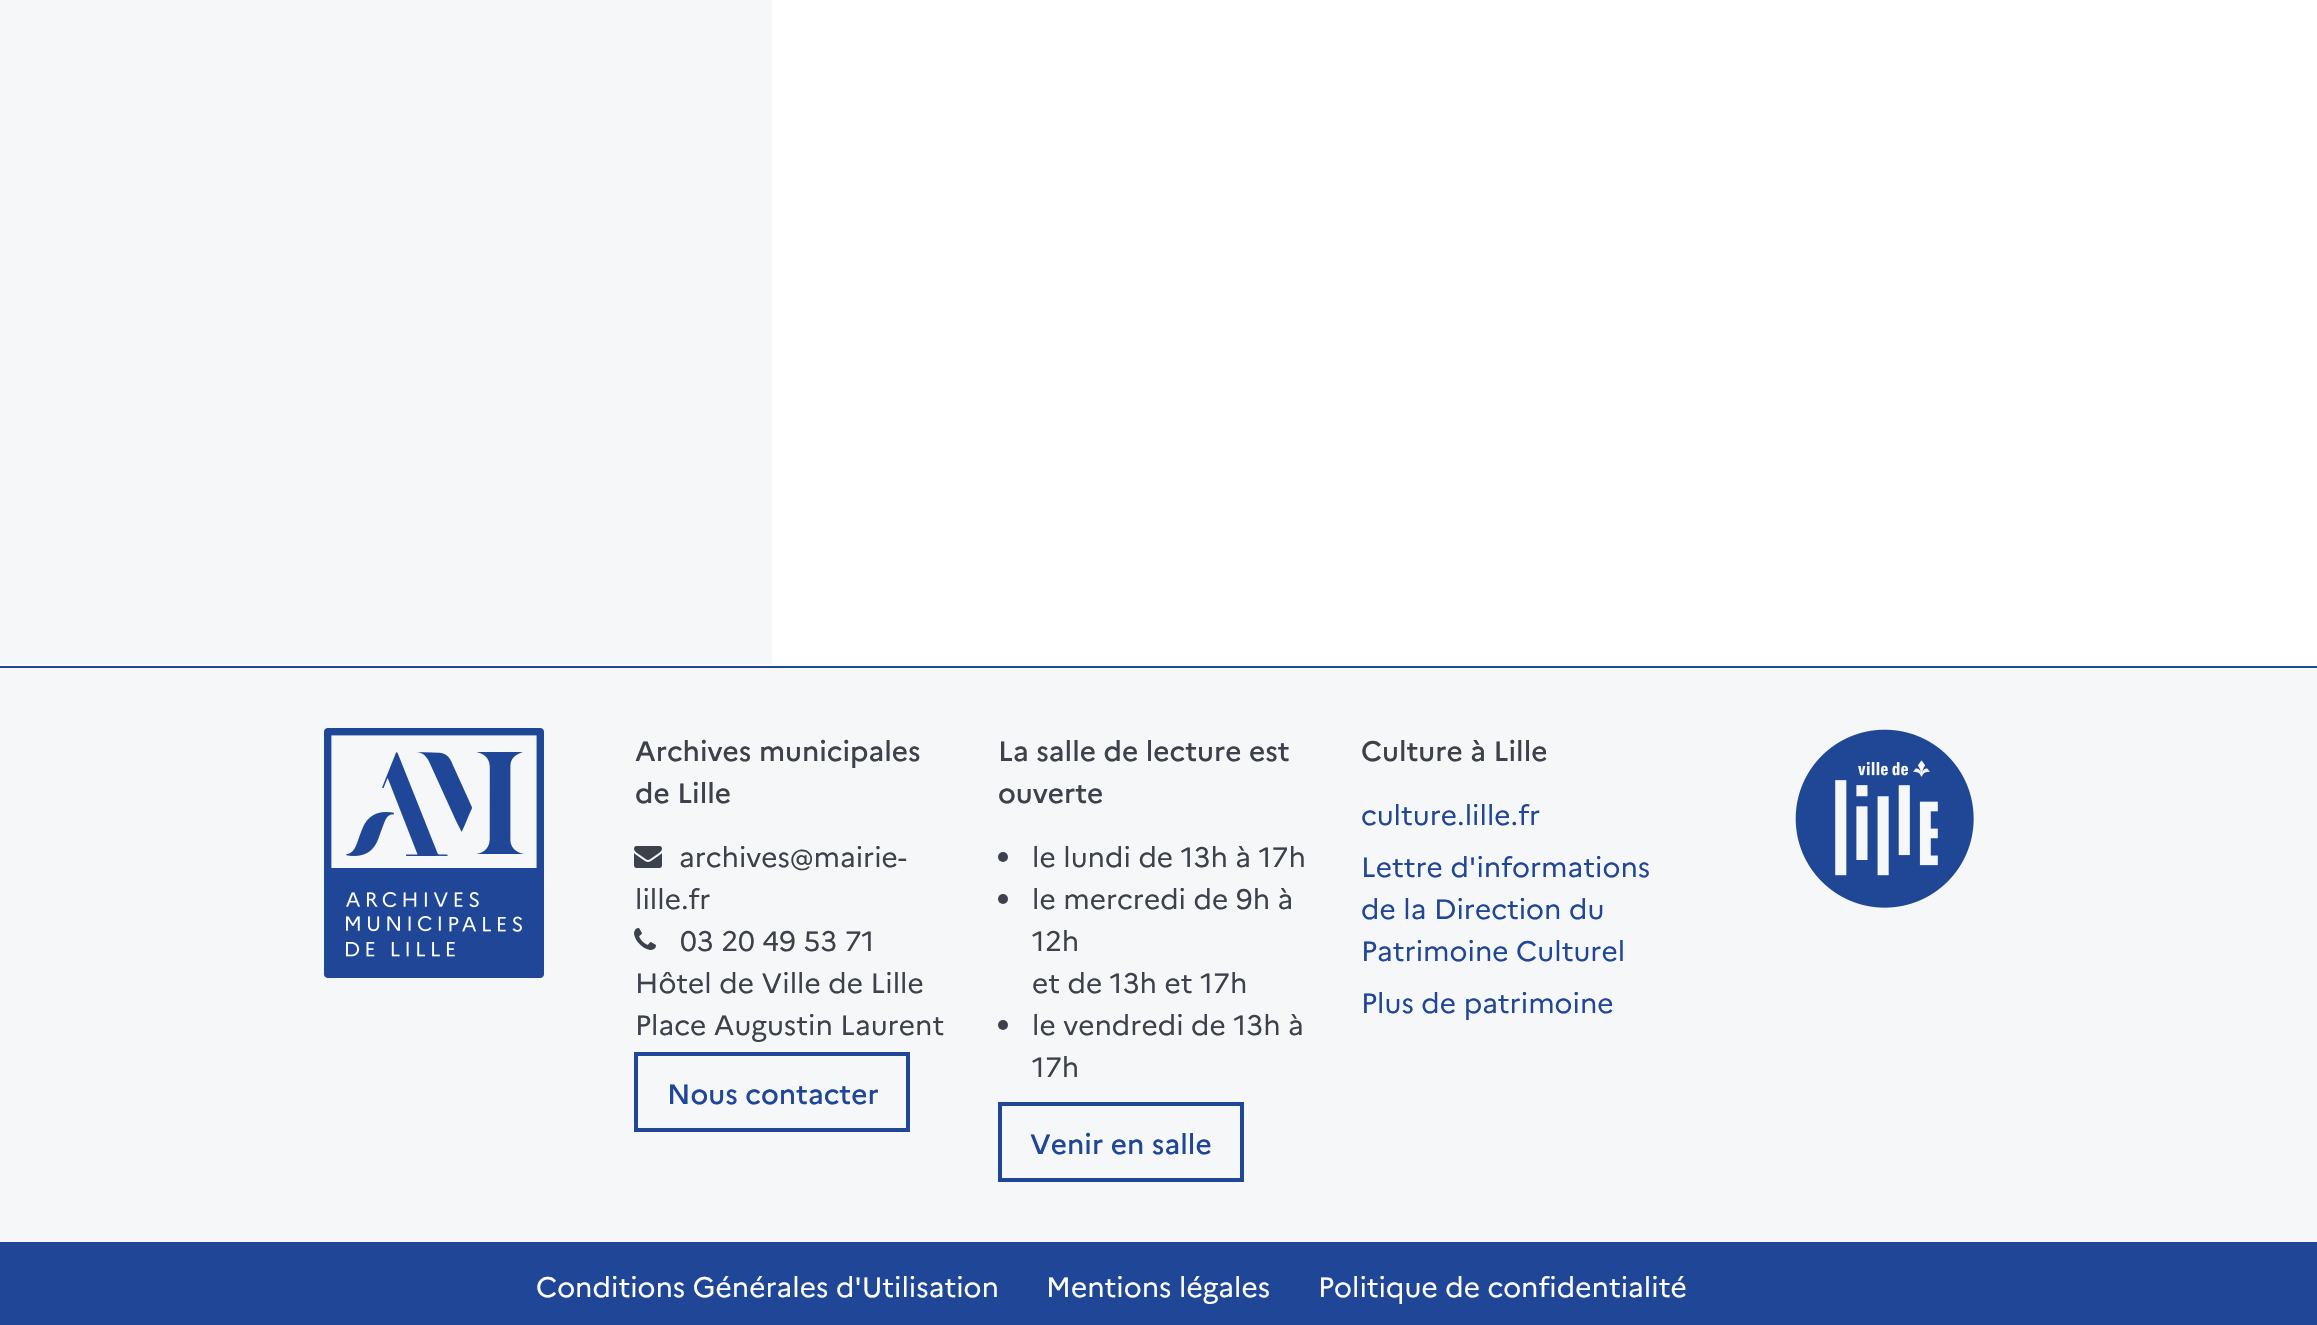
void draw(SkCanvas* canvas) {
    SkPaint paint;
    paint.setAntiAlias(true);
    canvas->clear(0xFFFFFFFF);
    paint.setColor(0xFFF6F7F8);
    canvas->drawRect(SkRect::MakeXYWH(0, 0, 772, 664), paint);
    canvas->drawRect(SkRect::MakeXYWH(0, 668, 2317, 574), paint);
    paint.setColor(0xFF204697);
    canvas->drawRect(SkRect::MakeXYWH(0, 666, 2317, 2), paint);
    canvas->drawImageRect(SkImages::DeferredFromEncodedData(SkData::MakeFromFileName("img1.png")), SkRect::MakeXYWH(324, 728, 220, 250), SkSamplingOptions());
    SkFont font1(fontMgr->matchFamilyStyle("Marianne", SkFontStyle(500, SkFontStyle::kNormal_Width, SkFontStyle::kUpright_Slant)), 28);
    font1.setSubpixel(true);
    paint.setColor(0xFF3C414B);
    canvas->drawString("Archives municipales", 635, 761, font1, paint);
    canvas->drawString("de Lille", 635, 803, font1, paint);
    canvas->drawImageRect(SkImages::DeferredFromEncodedData(SkData::MakeFromFileName("img2.png")), SkRect::MakeXYWH(634, 846, 28, 22), SkSamplingOptions());
    SkFont font2(fontMgr->matchFamilyStyle("Marianne", SkFontStyle::Normal()), 28);
    font2.setSubpixel(true);
    canvas->drawString("archives@mairie-", 679, 867, font2, paint);
    canvas->drawString("lille.fr", 635, 909, font2, paint);
    canvas->drawImageRect(SkImages::DeferredFromEncodedData(SkData::MakeFromFileName("img3.png")), SkRect::MakeXYWH(634, 928, 22, 22), SkSamplingOptions());
    canvas->drawString("03 20 49 53 71", 680, 951, font2, paint);
    canvas->drawString("Hôtel de Ville de Lille", 635, 993, font2, paint);
    canvas->drawString("Place Augustin Laurent", 635, 1035, font2, paint);
    paint.setStyle(SkPaint::kStroke_Style);
    paint.setStrokeWidth(4);
    paint.setColor(0xFF204697);
    canvas->drawRect(SkRect::MakeXYWH(636, 1054, 272, 76), paint);
    paint.setStyle(SkPaint::kFill_Style);
    canvas->drawString("Nous contacter", 667, 1104, font1, paint);
    paint.setColor(0xFF3C414B);
    canvas->drawString("La salle de lecture est", 998, 761, font1, paint);
    canvas->drawString("ouverte", 998, 803, font1, paint);
    canvas->drawCircle(1003, 857, 5, paint);
    canvas->drawString("le lundi de 13h à 17h", 1032, 867, font2, paint);
    canvas->drawCircle(1003, 899, 5, paint);
    canvas->drawString("le mercredi de 9h à", 1032, 909, font2, paint);
    canvas->drawString("12h", 1032, 951, font2, paint);
    canvas->drawString("et de 13h et 17h", 1032, 993, font2, paint);
    canvas->drawCircle(1003, 1025, 5, paint);
    canvas->drawString("le vendredi de 13h à", 1032, 1035, font2, paint);
    canvas->drawString("17h", 1032, 1077, font2, paint);
    paint.setStyle(SkPaint::kStroke_Style);
    paint.setColor(0xFF204697);
    canvas->drawRect(SkRect::MakeXYWH(1000, 1104, 242, 76), paint);
    paint.setStyle(SkPaint::kFill_Style);
    canvas->drawString("Venir en salle", 1030, 1154, font1, paint);
    paint.setColor(0xFF3C414B);
    canvas->drawString("Culture à Lille", 1361, 761, font1, paint);
    paint.setColor(0xFF204697);
    canvas->drawString("culture.lille.fr", 1361, 825, font2, paint);
    canvas->drawString("Lettre d'informations", 1361, 877, font2, paint);
    canvas->drawString("de la Direction du", 1361, 919, font2, paint);
    canvas->drawString("Patrimoine Culturel", 1361, 961, font2, paint);
    canvas->drawString("Plus de patrimoine", 1361, 1013, font2, paint);
    canvas->drawImageRect(SkImages::DeferredFromEncodedData(SkData::MakeFromFileName("img4.png")), SkRect::MakeXYWH(1795, 729, 179, 179), SkSamplingOptions());
    canvas->drawRect(SkRect::MakeXYWH(0, 1242, 2317, 83), paint);
    paint.setColor(0xFFFFFFFF);
    canvas->drawString("Conditions Générales d'Utilisation", 536, 1297, font2, paint);
    canvas->drawString("Mentions légales", 1046, 1297, font2, paint);
    canvas->drawString("Politique de confidentialité", 1318, 1297, font2, paint);
}
